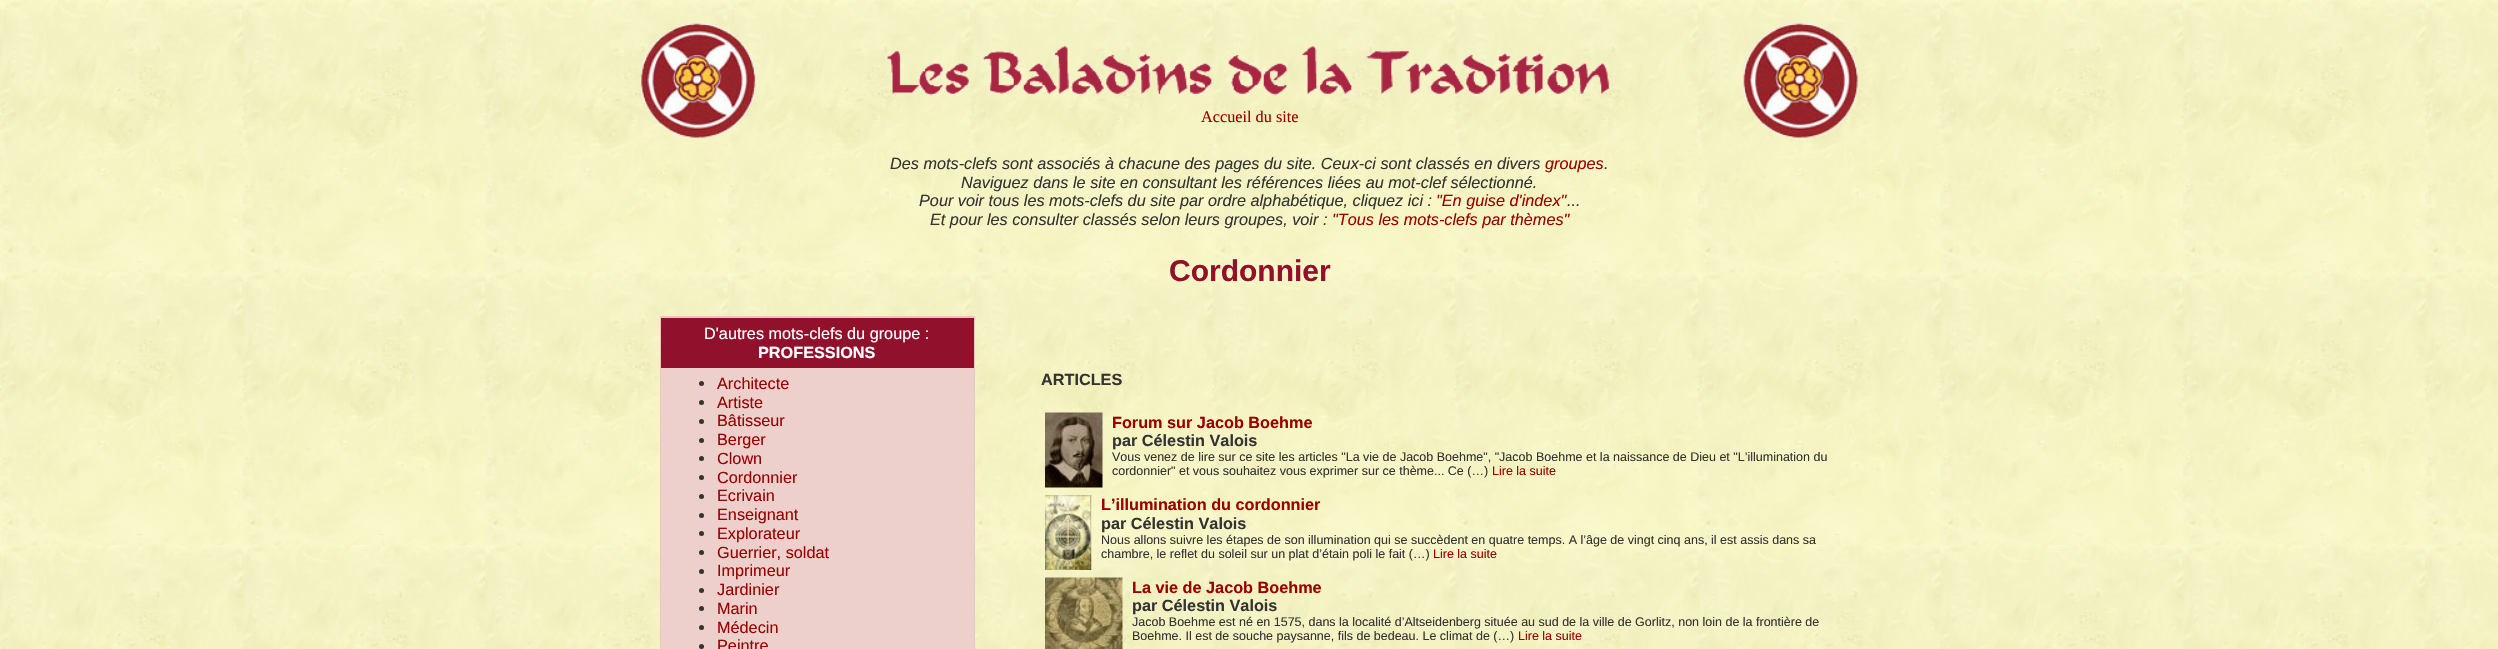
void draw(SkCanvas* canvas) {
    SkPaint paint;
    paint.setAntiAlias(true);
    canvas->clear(0xFFFFFFFF);
    canvas->drawImageRect(SkImages::DeferredFromEncodedData(SkData::MakeFromFileName("img1.png")), SkRect::MakeXYWH(0, 0, 2498, 649), SkSamplingOptions());
    canvas->drawImageRect(SkImages::DeferredFromEncodedData(SkData::MakeFromFileName("img2.png")), SkRect::MakeXYWH(641, 23, 115, 115), SkSamplingOptions());
    canvas->drawImageRect(SkImages::DeferredFromEncodedData(SkData::MakeFromFileName("img3.png")), SkRect::MakeXYWH(886, 46, 724, 50), SkSamplingOptions());
    SkFont font1(fontMgr->matchFamilyStyle("Liberation Serif", SkFontStyle::Normal()), 16.25f);
    font1.setSubpixel(true);
    paint.setColor(0xFF990000);
    canvas->drawString("Accueil du site", 1201, 122, font1, paint);
    canvas->drawImageRect(SkImages::DeferredFromEncodedData(SkData::MakeFromFileName("img4.png")), SkRect::MakeXYWH(1743, 23, 115, 115), SkSamplingOptions());
    SkFont font2(fontMgr->matchFamilyStyle("Liberation Sans", SkFontStyle::Italic()), 16.25f);
    font2.setSubpixel(true);
    paint.setColor(0xFF333333);
    canvas->drawString("Des mots-clefs sont associés à chacune des pages du site. Ceux-ci sont classés en divers", 890, 169, font2, paint);
    paint.setColor(0xFF990000);
    canvas->drawString("groupes", 1545, 169, font2, paint);
    paint.setColor(0xFF333333);
    canvas->drawString(".", 1604, 169, font2, paint);
    canvas->drawString("Naviguez dans le site en consultant les références liées au mot-clef sélectionné.", 961, 188, font2, paint);
    canvas->drawString("Pour voir tous les mots-clefs du site par ordre alphabétique, cliquez ici :", 919, 206, font2, paint);
    paint.setColor(0xFF990000);
    canvas->drawString("\"En guise d'index\"", 1436, 206, font2, paint);
    paint.setColor(0xFF333333);
    canvas->drawString("...", 1567, 206, font2, paint);
    canvas->drawString("Et pour les consulter classés selon leurs groupes, voir :", 930, 225, font2, paint);
    paint.setColor(0xFF990000);
    canvas->drawString("\"Tous les mots-clefs par thèmes\"", 1332, 225, font2, paint);
    SkFont font3(fontMgr->matchFamilyStyle("Liberation Sans", SkFontStyle::Bold()), 30);
    font3.setSubpixel(true);
    paint.setColor(0xFF91102C);
    canvas->drawString("Cordonnier", 1169, 281, font3, paint);
    paint.setColor(0xFFE6C6C6);
    canvas->drawRect(SkRect::MakeXYWH(660, 316, 315, 333), paint);
    paint.setColor(0xFF91102C);
    canvas->drawRect(SkRect::MakeXYWH(661, 318, 313, 50), paint);
    SkFont font4(fontMgr->matchFamilyStyle("Liberation Sans", SkFontStyle::Normal()), 16.25f);
    font4.setSubpixel(true);
    paint.setColor(0xFFFFFFFF);
    canvas->drawString("D'autres mots-clefs du groupe :", 704, 339, font4, paint);
    SkFont font5(fontMgr->matchFamilyStyle("Liberation Sans", SkFontStyle::Bold()), 16.25f);
    font5.setSubpixel(true);
    canvas->drawString("PROFESSIONS", 758, 358, font5, paint);
    paint.setColor(0xFFEDD0CB);
    canvas->drawRect(SkRect::MakeXYWH(661, 368, 313, 281), paint);
    paint.setColor(0xFF333333);
    canvas->drawCircle(701.5f, 383.5f, 2.5f, paint);
    paint.setColor(0xFF990000);
    canvas->drawString("Architecte", 717, 389, font4, paint);
    paint.setColor(0xFF333333);
    canvas->drawCircle(701.5f, 402.5f, 2.5f, paint);
    paint.setColor(0xFF990000);
    canvas->drawString("Artiste", 717, 408, font4, paint);
    paint.setColor(0xFF333333);
    canvas->drawCircle(701.5f, 421.5f, 2.5f, paint);
    paint.setColor(0xFF990000);
    canvas->drawString("Bâtisseur", 717, 426, font4, paint);
    paint.setColor(0xFF333333);
    canvas->drawCircle(701.5f, 440.5f, 2.5f, paint);
    paint.setColor(0xFF990000);
    canvas->drawString("Berger", 717, 445, font4, paint);
    paint.setColor(0xFF333333);
    canvas->drawCircle(701.5f, 458.5f, 2.5f, paint);
    paint.setColor(0xFF990000);
    canvas->drawString("Clown", 717, 464, font4, paint);
    paint.setColor(0xFF333333);
    canvas->drawCircle(701.5f, 477.5f, 2.5f, paint);
    paint.setColor(0xFF990000);
    canvas->drawString("Cordonnier", 717, 483, font4, paint);
    paint.setColor(0xFF333333);
    canvas->drawCircle(701.5f, 496.5f, 2.5f, paint);
    paint.setColor(0xFF990000);
    canvas->drawString("Ecrivain", 717, 501, font4, paint);
    paint.setColor(0xFF333333);
    canvas->drawCircle(701.5f, 515.5f, 2.5f, paint);
    paint.setColor(0xFF990000);
    canvas->drawString("Enseignant", 717, 520, font4, paint);
    paint.setColor(0xFF333333);
    canvas->drawCircle(701.5f, 533.5f, 2.5f, paint);
    paint.setColor(0xFF990000);
    canvas->drawString("Explorateur", 717, 539, font4, paint);
    paint.setColor(0xFF333333);
    canvas->drawCircle(701.5f, 552.5f, 2.5f, paint);
    paint.setColor(0xFF990000);
    canvas->drawString("Guerrier, soldat", 717, 558, font4, paint);
    paint.setColor(0xFF333333);
    canvas->drawCircle(701.5f, 571.5f, 2.5f, paint);
    paint.setColor(0xFF990000);
    canvas->drawString("Imprimeur", 717, 576, font4, paint);
    paint.setColor(0xFF333333);
    canvas->drawCircle(701.5f, 590.5f, 2.5f, paint);
    paint.setColor(0xFF990000);
    canvas->drawString("Jardinier", 717, 595, font4, paint);
    paint.setColor(0xFF333333);
    canvas->drawCircle(701.5f, 608.5f, 2.5f, paint);
    paint.setColor(0xFF990000);
    canvas->drawString("Marin", 717, 614, font4, paint);
    paint.setColor(0xFF333333);
    canvas->drawCircle(701.5f, 627.5f, 2.5f, paint);
    paint.setColor(0xFF990000);
    canvas->drawString("Médecin", 717, 633, font4, paint);
    paint.setColor(0xFF333333);
    canvas->drawCircle(701.5f, 646.5f, 2.5f, paint);
    paint.setColor(0xFF990000);
    canvas->drawString("Peintre", 717, 651, font4, paint);
    paint.setColor(0xFF333333);
    canvas->drawString("ARTICLES", 1041, 385, font5, paint);
    canvas->drawImageRect(SkImages::DeferredFromEncodedData(SkData::MakeFromFileName("img5.png")), SkRect::MakeXYWH(1045, 412, 58, 76), SkSamplingOptions());
    paint.setColor(0xFF990000);
    canvas->drawString("Forum sur Jacob Boehme", 1112, 428, font5, paint);
    paint.setColor(0xFF333333);
    canvas->drawString("par Célestin Valois", 1112, 446, font5, paint);
    SkFont font6(fontMgr->matchFamilyStyle("Liberation Sans", SkFontStyle::Normal()), 12.5f);
    font6.setSubpixel(true);
    canvas->drawString("Vous venez de lire sur ce site les articles \"La vie de Jacob Boehme\", \"Jacob Boehme et la naissance de Dieu et \"L’illumination du", 1112, 461, font6, paint);
    canvas->drawString("cordonnier\" et vous souhaitez vous exprimer sur ce thème... Ce (…)", 1112, 475, font6, paint);
    paint.setColor(0xFF990000);
    canvas->drawString("Lire la suite", 1492, 475, font6, paint);
    canvas->drawImageRect(SkImages::DeferredFromEncodedData(SkData::MakeFromFileName("img6.png")), SkRect::MakeXYWH(1045, 495, 47, 75), SkSamplingOptions());
    canvas->drawString("L’illumination du cordonnier", 1101, 510, font5, paint);
    paint.setColor(0xFF333333);
    canvas->drawString("par Célestin Valois", 1101, 529, font5, paint);
    canvas->drawString("Nous allons suivre les étapes de son illumination qui se succèdent en quatre temps. A l’âge de vingt cinq ans, il est assis dans sa", 1101, 544, font6, paint);
    canvas->drawString("chambre, le reflet du soleil sur un plat d’étain poli le fait (…)", 1101, 558, font6, paint);
    paint.setColor(0xFF990000);
    canvas->drawString("Lire la suite", 1433, 558, font6, paint);
    canvas->drawImageRect(SkImages::DeferredFromEncodedData(SkData::MakeFromFileName("img7.png")), SkRect::MakeXYWH(1045, 577, 78, 72), SkSamplingOptions());
    canvas->drawString("La vie de Jacob Boehme", 1132, 593, font5, paint);
    paint.setColor(0xFF333333);
    canvas->drawString("par Célestin Valois", 1132, 611, font5, paint);
    canvas->drawString("Jacob Boehme est né en 1575, dans la localité d’Altseidenberg située au sud de la ville de Gorlitz, non loin de la frontière de", 1132, 626, font6, paint);
    canvas->drawString("Boehme. Il est de souche paysanne, fils de bedeau. Le climat de (…)", 1132, 640, font6, paint);
    paint.setColor(0xFF990000);
    canvas->drawString("Lire la suite", 1518, 640, font6, paint);
}
